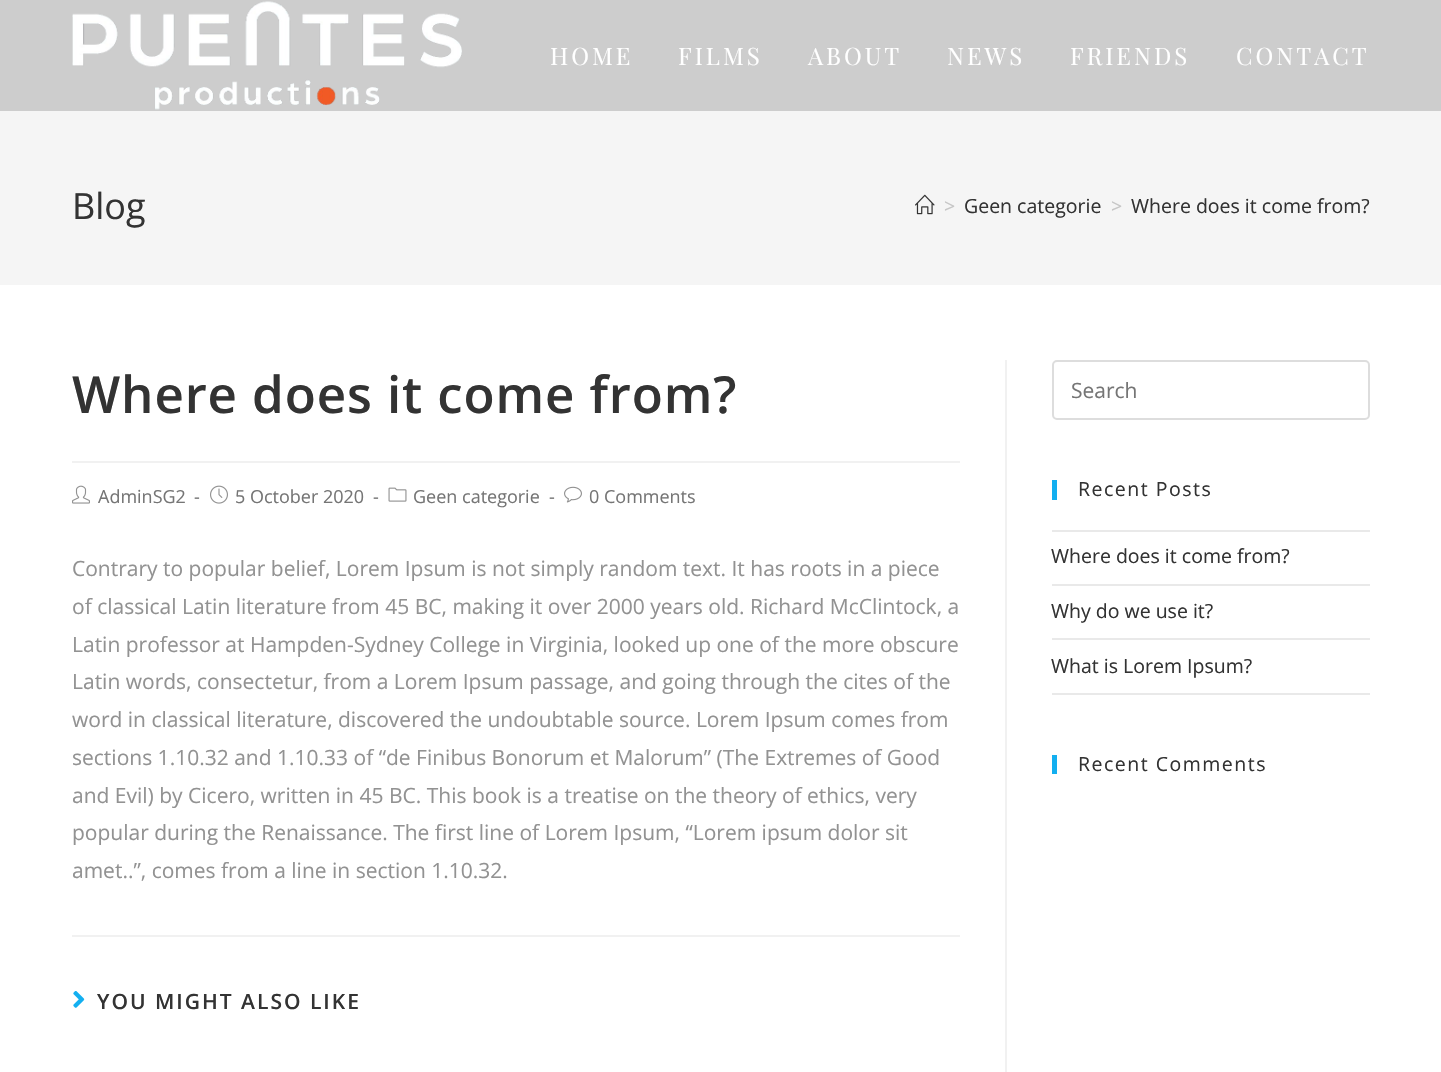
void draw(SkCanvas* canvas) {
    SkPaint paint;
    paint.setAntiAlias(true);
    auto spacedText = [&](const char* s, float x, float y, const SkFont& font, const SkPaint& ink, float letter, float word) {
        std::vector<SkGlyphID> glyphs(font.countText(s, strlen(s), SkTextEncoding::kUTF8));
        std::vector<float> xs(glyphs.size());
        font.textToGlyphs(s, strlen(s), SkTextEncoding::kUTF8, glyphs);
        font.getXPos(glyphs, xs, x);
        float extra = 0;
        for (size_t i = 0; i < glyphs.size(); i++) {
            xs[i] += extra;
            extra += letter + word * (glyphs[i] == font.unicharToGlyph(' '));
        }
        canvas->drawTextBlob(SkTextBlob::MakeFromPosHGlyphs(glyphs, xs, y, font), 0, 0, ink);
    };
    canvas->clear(0xFFFFFFFF);
    paint.setColor(0xFFCDCDCD);
    canvas->drawRect(SkRect::MakeXYWH(0, 0, 1441, 111), paint);
    canvas->drawImageRect(SkImages::DeferredFromEncodedData(SkData::MakeFromFileName("img1.png")), SkRect::MakeXYWH(72, 1, 390, 109), SkSamplingOptions());
    SkFont font1(fontMgr->matchFamilyStyle("Playfair Display", SkFontStyle::Normal()), 24);
    font1.setSubpixel(true);
    paint.setColor(0xFFFFFFFF);
    spacedText("HOME", 550, 65, font1, paint, 3, 0);
    spacedText("FILMS", 678, 65, font1, paint, 3, 0);
    spacedText("ABOUT", 808, 65, font1, paint, 3, 0);
    spacedText("NEWS", 947, 65, font1, paint, 3, 0);
    spacedText("FRIENDS", 1070, 65, font1, paint, 3, 0);
    spacedText("CONTACT", 1236, 65, font1, paint, 3, 0);
    paint.setColor(0xFFF5F5F5);
    canvas->drawRect(SkRect::MakeXYWH(0, 111, 1441, 174), paint);
    SkFont font2(fontMgr->matchFamilyStyle("Open Sans", SkFontStyle::Normal()), 36);
    font2.setSubpixel(true);
    paint.setColor(0xFF333333);
    canvas->drawString("Blog", 72, 219, font2, paint);
    canvas->drawImageRect(SkImages::DeferredFromEncodedData(SkData::MakeFromFileName("img2.png")), SkRect::MakeXYWH(915, 194, 20, 21), SkSamplingOptions());
    SkFont font3(fontMgr->matchFamilyStyle("Open Sans", SkFontStyle::Normal()), 19.5f);
    font3.setSubpixel(true);
    paint.setColor(0xFFC6C6C6);
    canvas->drawString(">", 944, 213, font3, paint);
    paint.setColor(0xFF333333);
    canvas->drawString("Geen categorie", 964, 213, font3, paint);
    paint.setColor(0xFFC6C6C6);
    canvas->drawString(">", 1111, 213, font3, paint);
    paint.setColor(0xFF333333);
    canvas->drawString("Where does it come from?", 1131, 213, font3, paint);
    paint.setColor(0xFFF1F1F1);
    canvas->drawRect(SkRect::MakeXYWH(1005, 360, 2, 712), paint);
    canvas->drawRect(SkRect::MakeXYWH(72, 461, 888, 2), paint);
    SkFont font4(fontMgr->matchFamilyStyle("Open Sans", SkFontStyle(600, SkFontStyle::kNormal_Width, SkFontStyle::kUpright_Slant)), 51);
    font4.setSubpixel(true);
    paint.setColor(0xFF333333);
    spacedText("Where does it come from?", 72, 413, font4, paint, 0.9f, 0);
    canvas->drawImageRect(SkImages::DeferredFromEncodedData(SkData::MakeFromFileName("img3.png")), SkRect::MakeXYWH(72, 485, 18, 19), SkSamplingOptions());
    SkFont font5(fontMgr->matchFamilyStyle("Open Sans", SkFontStyle::Normal()), 18);
    font5.setSubpixel(true);
    paint.setColor(0xFF757575);
    canvas->drawString("AdminSG2", 98, 503, font5, paint);
    canvas->drawString("-", 194, 503, font5, paint);
    canvas->drawImageRect(SkImages::DeferredFromEncodedData(SkData::MakeFromFileName("img4.png")), SkRect::MakeXYWH(210, 485, 18, 19), SkSamplingOptions());
    canvas->drawString("5 October 2020", 235, 503, font5, paint);
    canvas->drawString("-", 373, 503, font5, paint);
    canvas->drawImageRect(SkImages::DeferredFromEncodedData(SkData::MakeFromFileName("img5.png")), SkRect::MakeXYWH(388, 487, 19, 15), SkSamplingOptions());
    canvas->drawString("Geen categorie", 413, 503, font5, paint);
    canvas->drawString("-", 549, 503, font5, paint);
    canvas->drawImageRect(SkImages::DeferredFromEncodedData(SkData::MakeFromFileName("img6.png")), SkRect::MakeXYWH(564, 486, 18, 17), SkSamplingOptions());
    canvas->drawString("0 Comments", 589, 503, font5, paint);
    SkFont font6(fontMgr->matchFamilyStyle("Open Sans", SkFontStyle::Normal()), 21);
    font6.setSubpixel(true);
    paint.setColor(0xFF929292);
    canvas->drawString("Contrary to popular belief, Lorem Ipsum is not simply random text. It has roots in a piece", 72, 576, font6, paint);
    canvas->drawString("of classical Latin literature from 45 BC, making it over 2000 years old. Richard McClintock, a", 72, 614, font6, paint);
    canvas->drawString("Latin professor at Hampden-Sydney College in Virginia, looked up one of the more obscure", 72, 652, font6, paint);
    canvas->drawString("Latin words, consectetur, from a Lorem Ipsum passage, and going through the cites of the", 72, 689, font6, paint);
    canvas->drawString("word in classical literature, discovered the undoubtable source. Lorem Ipsum comes from", 72, 727, font6, paint);
    canvas->drawString("sections 1.10.32 and 1.10.33 of “de Finibus Bonorum et Malorum” (The Extremes of Good", 72, 765, font6, paint);
    canvas->drawString("and Evil) by Cicero, written in 45 BC. This book is a treatise on the theory of ethics, very", 72, 803, font6, paint);
    canvas->drawString("popular during the Renaissance. The first line of Lorem Ipsum, “Lorem ipsum dolor sit", 72, 840, font6, paint);
    canvas->drawString("amet..”, comes from a line in section 1.10.32.", 72, 878, font6, paint);
    paint.setColor(0xFFF1F1F1);
    canvas->drawRect(SkRect::MakeXYWH(72, 935, 888, 2), paint);
    canvas->drawImageRect(SkImages::DeferredFromEncodedData(SkData::MakeFromFileName("img7.png")), SkRect::MakeXYWH(73, 991, 12, 17), SkSamplingOptions());
    SkFont font7(fontMgr->matchFamilyStyle("Open Sans", SkFontStyle(600, SkFontStyle::kNormal_Width, SkFontStyle::kUpright_Slant)), 21);
    font7.setSubpixel(true);
    paint.setColor(0xFF333333);
    spacedText("YOU MIGHT ALSO LIKE", 97, 1009, font7, paint, 2, 0);
    paint.setStyle(SkPaint::kStroke_Style);
    paint.setStrokeWidth(2);
    paint.setColor(0xFFDDDDDD);
    canvas->drawRoundRect(SkRect::MakeXYWH(1053, 361, 316, 58), 4, 4, paint);
    paint.setStyle(SkPaint::kFill_Style);
    paint.setColor(0xFF757575);
    canvas->drawString("Search", 1071, 398, font6, paint);
    paint.setColor(0xFF13AFF0);
    canvas->drawRect(SkRect::MakeXYWH(1052, 480, 5, 20), paint);
    paint.setColor(0xFF333333);
    spacedText("Recent Posts", 1078, 496, font3, paint, 1.5f, 0);
    paint.setColor(0xFFE9E9E9);
    canvas->drawRect(SkRect::MakeXYWH(1052, 530, 318, 2), paint);
    canvas->drawRect(SkRect::MakeXYWH(1052, 584, 318, 2), paint);
    paint.setColor(0xFF333333);
    canvas->drawString("Where does it come from?", 1051, 563, font3, paint);
    paint.setColor(0xFFE9E9E9);
    canvas->drawRect(SkRect::MakeXYWH(1052, 638, 318, 2), paint);
    paint.setColor(0xFF333333);
    canvas->drawString("Why do we use it?", 1051, 618, font3, paint);
    paint.setColor(0xFFE9E9E9);
    canvas->drawRect(SkRect::MakeXYWH(1052, 693, 318, 2), paint);
    paint.setColor(0xFF333333);
    canvas->drawString("What is Lorem Ipsum?", 1051, 673, font3, paint);
    paint.setColor(0xFF13AFF0);
    canvas->drawRect(SkRect::MakeXYWH(1052, 755, 5, 19), paint);
    paint.setColor(0xFF333333);
    spacedText("Recent Comments", 1078, 771, font3, paint, 1.5f, 0);
}
